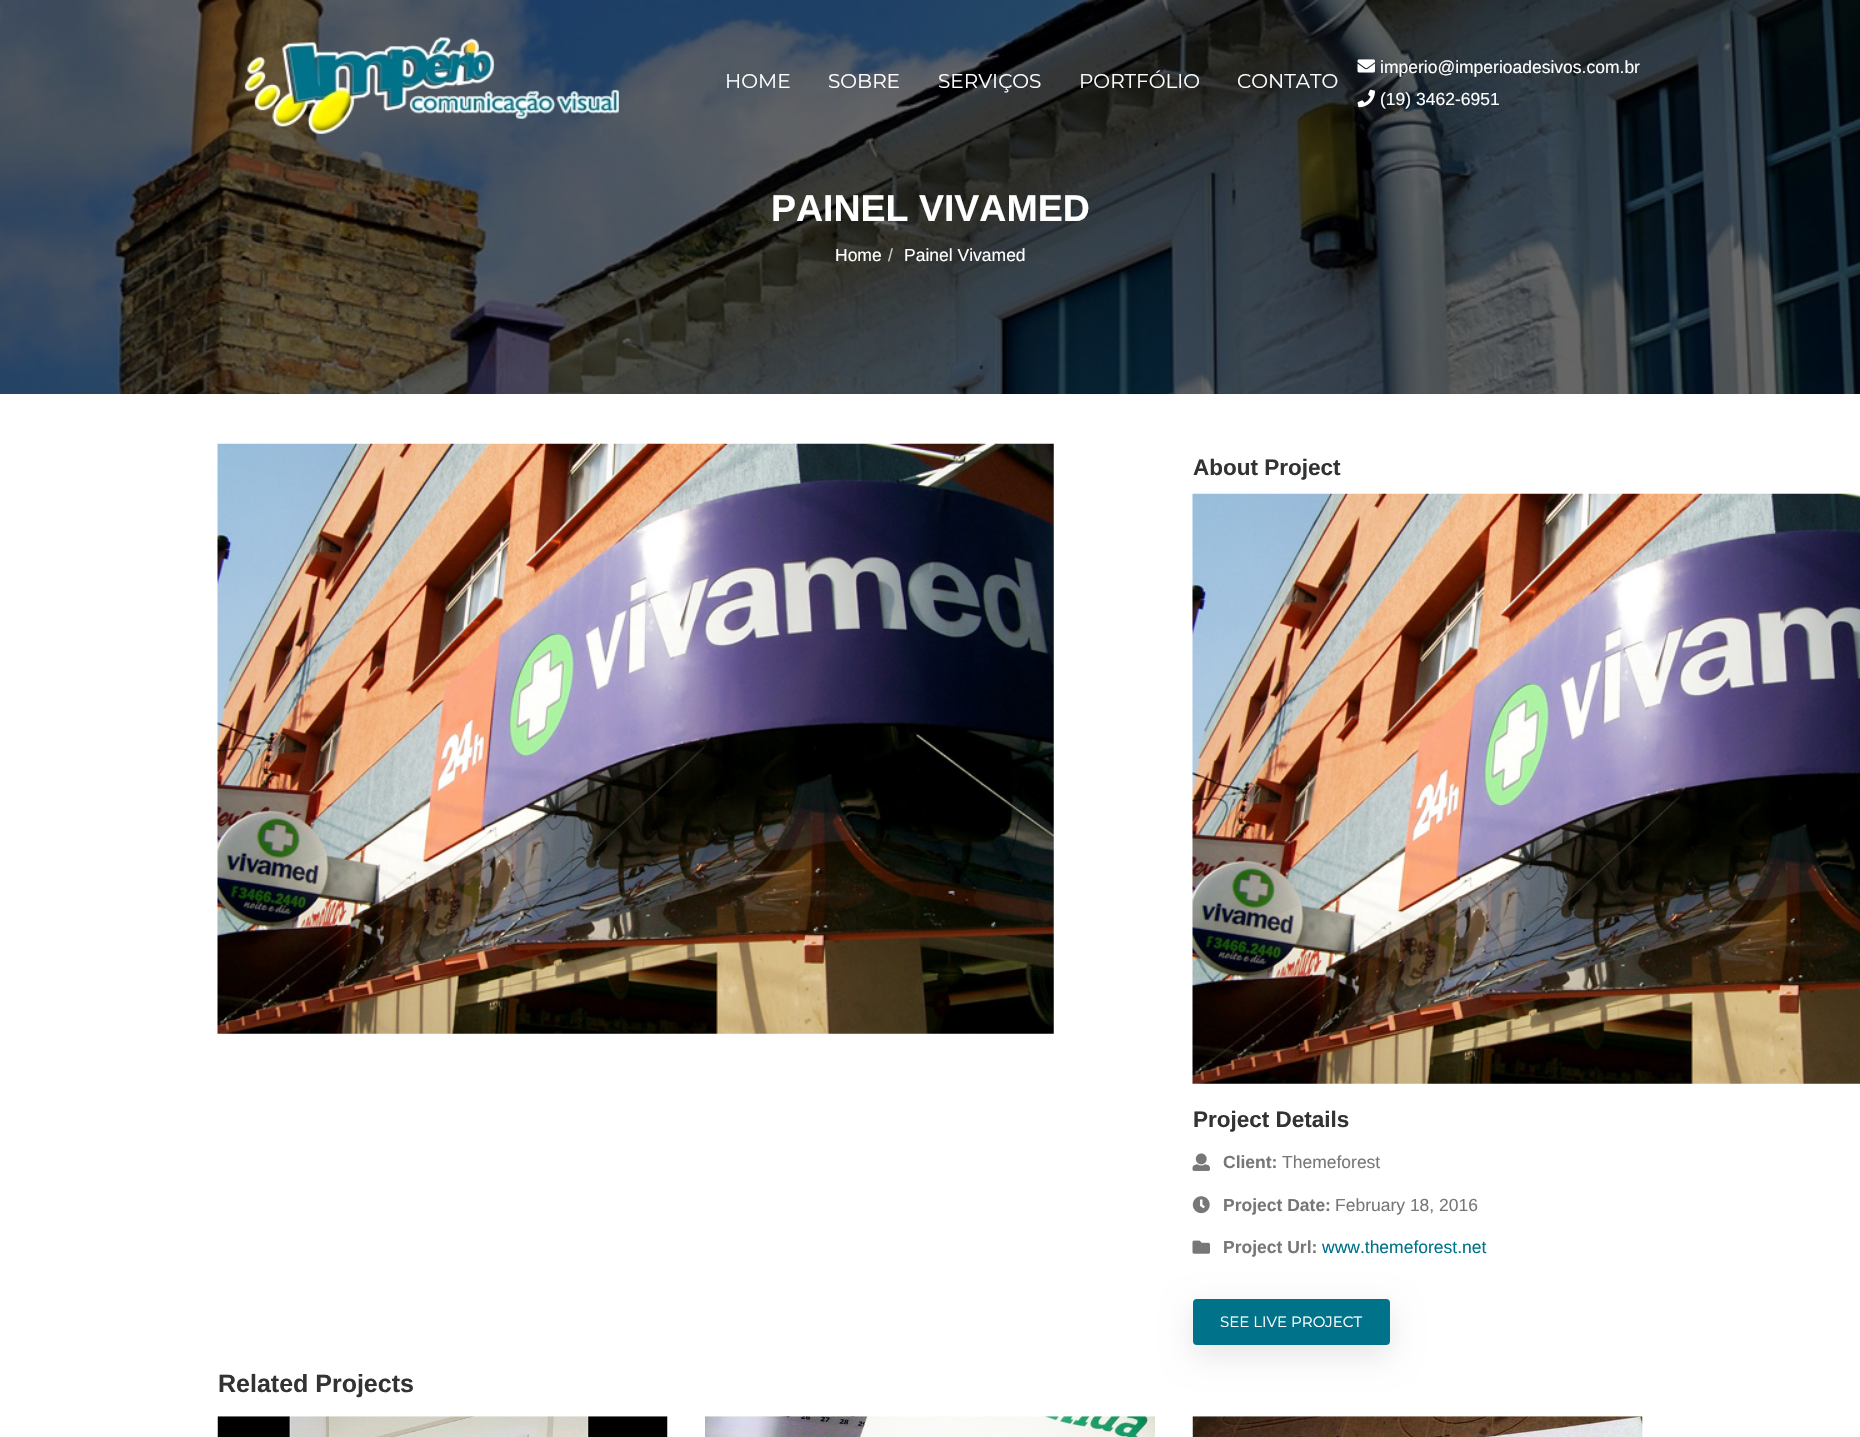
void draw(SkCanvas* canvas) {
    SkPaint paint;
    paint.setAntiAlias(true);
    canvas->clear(0xFFFFFFFF);
    canvas->drawImageRect(SkImages::DeferredFromEncodedData(SkData::MakeFromFileName("img4.png")), SkRect::MakeXYWH(0, 0, 1860, 394), SkSamplingOptions());
    canvas->drawImageRect(SkImages::DeferredFromEncodedData(SkData::MakeFromFileName("img1.png")), SkRect::MakeXYWH(244, 37, 375, 97), SkSamplingOptions());
    SkFont font1(fontMgr->matchFamilyStyle("Montserrat", SkFontStyle(100, SkFontStyle::kNormal_Width, SkFontStyle::kUpright_Slant)), 20);
    font1.setSubpixel(true);
    paint.setColor(0xFFFFFFFF);
    canvas->drawString("HOME", 725, 88, font1, paint);
    canvas->drawString("SOBRE", 828, 88, font1, paint);
    canvas->drawString("SERVIÇOS", 938, 88, font1, paint);
    canvas->drawString("PORTFÓLIO", 1079, 88, font1, paint);
    canvas->drawString("CONTATO", 1237, 88, font1, paint);
    canvas->drawImageRect(SkImages::DeferredFromEncodedData(SkData::MakeFromFileName("img2.png")), SkRect::MakeXYWH(1357, 59, 18, 14), SkSamplingOptions());
    SkFont font2(fontMgr->matchFamilyStyle("Liberation Sans", SkFontStyle::Normal()), 17.5f);
    font2.setSubpixel(true);
    canvas->drawString("imperio@imperioadesivos.com.br", 1380, 73, font2, paint);
    canvas->drawImageRect(SkImages::DeferredFromEncodedData(SkData::MakeFromFileName("img3.png")), SkRect::MakeXYWH(1357, 89, 18, 19), SkSamplingOptions());
    canvas->drawString("(19) 3462-6951", 1380, 105, font2, paint);
    SkFont font3(fontMgr->matchFamilyStyle("Liberation Sans", SkFontStyle::Bold()), 37.5f);
    font3.setSubpixel(true);
    canvas->drawString("PAINEL VIVAMED", 771, 221, font3, paint);
    canvas->drawString("Home", 835, 261, font2, paint);
    paint.setColor(0xFFCCCCCC);
    canvas->drawString("/", 888, 261, font2, paint);
    paint.setColor(0xFFFFFFFF);
    canvas->drawString("Painel Vivamed", 904, 261, font2, paint);
    canvas->drawImageRect(SkImages::DeferredFromEncodedData(SkData::MakeFromFileName("img5.png")), SkRect::MakeXYWH(217, 443, 837, 591), SkSamplingOptions());
    SkFont font4(fontMgr->matchFamilyStyle("Liberation Sans", SkFontStyle::Bold()), 22.5f);
    font4.setSubpixel(true);
    paint.setColor(0xFF333333);
    canvas->drawString("About Project", 1193, 475, font4, paint);
    canvas->drawImageRect(SkImages::DeferredFromEncodedData(SkData::MakeFromFileName("img6.png")), SkRect::MakeXYWH(1192, 493, 668, 591), SkSamplingOptions());
    canvas->drawString("Project Details", 1193, 1127, font4, paint);
    canvas->drawImageRect(SkImages::DeferredFromEncodedData(SkData::MakeFromFileName("img7.png")), SkRect::MakeXYWH(1192, 1153, 18, 18), SkSamplingOptions());
    SkFont font5(fontMgr->matchFamilyStyle("Liberation Sans", SkFontStyle::Bold()), 17.5f);
    font5.setSubpixel(true);
    paint.setColor(0xFF777777);
    canvas->drawString("Client:", 1223, 1168, font5, paint);
    canvas->drawString("Themeforest", 1282, 1168, font2, paint);
    canvas->drawImageRect(SkImages::DeferredFromEncodedData(SkData::MakeFromFileName("img8.png")), SkRect::MakeXYWH(1192, 1196, 18, 18), SkSamplingOptions());
    canvas->drawString("Project Date:", 1223, 1211, font5, paint);
    canvas->drawString("February 18, 2016", 1335, 1211, font2, paint);
    canvas->drawImageRect(SkImages::DeferredFromEncodedData(SkData::MakeFromFileName("img9.png")), SkRect::MakeXYWH(1192, 1240, 18, 14), SkSamplingOptions());
    canvas->drawString("Project Url:", 1223, 1253, font5, paint);
    paint.setColor(0xFF00728A);
    canvas->drawString("www.themeforest.net", 1322, 1253, font2, paint);
    paint.setColor(0x1A000000);
    paint.setMaskFilter(SkMaskFilter::MakeBlur(kNormal_SkBlurStyle, 15.5f));
    canvas->drawRoundRect(SkRect::MakeXYWH(1193, 1309, 197, 46), 4, 4, paint);
    paint.setMaskFilter(nullptr);
    paint.setColor(0xFF00728A);
    canvas->drawRoundRect(SkRect::MakeXYWH(1194.5f, 1300.5f, 194, 43), 2.5f, 2.5f, paint);
    paint.setStyle(SkPaint::kStroke_Style);
    paint.setStrokeWidth(3);
    canvas->drawRoundRect(SkRect::MakeXYWH(1194.5f, 1300.5f, 194, 43), 2.5f, 2.5f, paint);
    SkFont font6(fontMgr->matchFamilyStyle("Montserrat", SkFontStyle(100, SkFontStyle::kNormal_Width, SkFontStyle::kUpright_Slant)), 15);
    font6.setSubpixel(true);
    paint.setStyle(SkPaint::kFill_Style);
    paint.setColor(0xFFFFFFFF);
    canvas->drawString("SEE LIVE PROJECT", 1220, 1327, font6, paint);
    SkFont font7(fontMgr->matchFamilyStyle("Liberation Sans", SkFontStyle::Bold()), 25);
    font7.setSubpixel(true);
    paint.setColor(0xFF333333);
    canvas->drawString("Related Projects", 218, 1392, font7, paint);
    canvas->drawImageRect(SkImages::DeferredFromEncodedData(SkData::MakeFromFileName("img10.png")), SkRect::MakeXYWH(217, 1416, 451, 21), SkSamplingOptions());
    canvas->drawImageRect(SkImages::DeferredFromEncodedData(SkData::MakeFromFileName("img11.png")), SkRect::MakeXYWH(705, 1416, 450, 21), SkSamplingOptions());
    canvas->drawImageRect(SkImages::DeferredFromEncodedData(SkData::MakeFromFileName("img12.png")), SkRect::MakeXYWH(1192, 1416, 451, 21), SkSamplingOptions());
}
